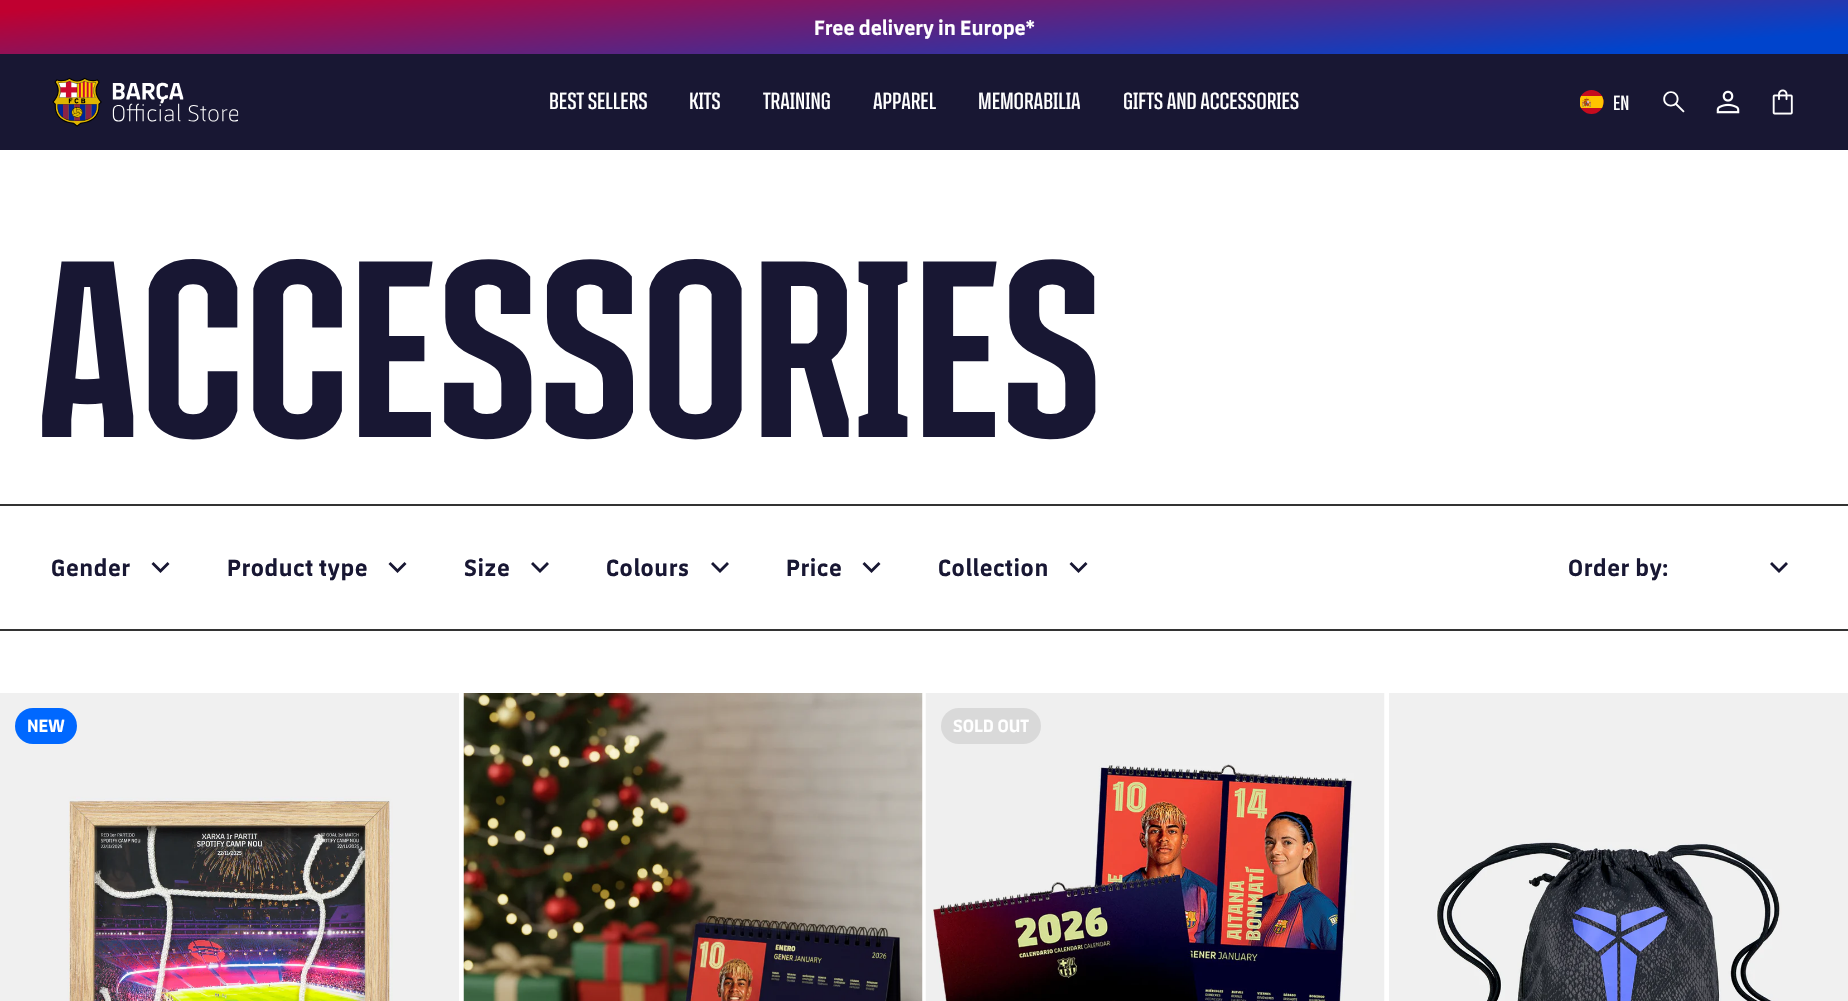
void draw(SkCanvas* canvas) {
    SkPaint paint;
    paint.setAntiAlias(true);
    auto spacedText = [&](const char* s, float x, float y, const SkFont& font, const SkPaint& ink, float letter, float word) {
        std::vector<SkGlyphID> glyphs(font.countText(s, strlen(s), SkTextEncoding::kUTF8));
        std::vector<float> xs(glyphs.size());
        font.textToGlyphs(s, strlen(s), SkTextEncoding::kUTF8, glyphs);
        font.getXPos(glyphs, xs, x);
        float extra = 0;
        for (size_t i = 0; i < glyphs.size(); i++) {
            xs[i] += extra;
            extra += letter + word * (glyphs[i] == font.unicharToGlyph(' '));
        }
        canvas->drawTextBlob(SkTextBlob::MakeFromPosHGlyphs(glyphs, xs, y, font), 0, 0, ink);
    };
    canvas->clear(0xFFFFFFFF);
    {
        const SkColor colors[] = {0xFFC00030, 0xFF0044CC};
        const float stops[] = {0.07f, 0.88f};
        const SkPoint ends[] = {{915, -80}, {933, 134}};
        paint.setShader(SkGradientShader::MakeLinear(ends, colors, stops, 2, SkTileMode::kClamp));
        paint.setAlpha(255);
    }
    canvas->drawRect(SkRect::MakeXYWH(0, 0, 1848, 54), paint);
    SkFont font1(fontMgr->matchFamilyStyle("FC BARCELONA", SkFontStyle::Bold()), 21);
    font1.setSubpixel(true);
    paint.setShader(nullptr);
    paint.setColor(0xFFFFFFFF);
    canvas->drawString("Free delivery in Europe*", 814, 35, font1, paint);
    paint.setColor(0xFF181733);
    canvas->drawRect(SkRect::MakeXYWH(0, 54, 1848, 96), paint);
    canvas->drawImageRect(SkImages::DeferredFromEncodedData(SkData::MakeFromFileName("img1.png")), SkRect::MakeXYWH(52, 77, 187, 50), SkSamplingOptions());
    SkFont font2(fontMgr->matchFamilyStyle("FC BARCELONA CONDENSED", SkFontStyle(600, SkFontStyle::kNormal_Width, SkFontStyle::kUpright_Slant)), 24);
    font2.setSubpixel(true);
    paint.setColor(0xFFFFFFFF);
    canvas->drawString("BEST SELLERS", 549, 109, font2, paint);
    canvas->drawString("KITS", 689, 109, font2, paint);
    canvas->drawString("TRAINING", 763, 109, font2, paint);
    canvas->drawString("APPAREL", 873, 109, font2, paint);
    canvas->drawString("MEMORABILIA", 978, 109, font2, paint);
    canvas->drawString("GIFTS AND ACCESSORIES", 1123, 109, font2, paint);
    canvas->drawImageRect(SkImages::DeferredFromEncodedData(SkData::MakeFromFileName("img2.png")), SkRect::MakeXYWH(1580, 90, 24, 24), SkSamplingOptions());
    SkFont font3(fontMgr->matchFamilyStyle("FC BARCELONA CONDENSED", SkFontStyle(600, SkFontStyle::kNormal_Width, SkFontStyle::kUpright_Slant)), 21);
    font3.setSubpixel(true);
    canvas->drawString("EN", 1613, 110, font3, paint);
    canvas->drawImageRect(SkImages::DeferredFromEncodedData(SkData::MakeFromFileName("img3.png")), SkRect::MakeXYWH(1663, 91, 22, 22), SkSamplingOptions());
    canvas->drawImageRect(SkImages::DeferredFromEncodedData(SkData::MakeFromFileName("img4.png")), SkRect::MakeXYWH(1716, 90, 24, 24), SkSamplingOptions());
    canvas->drawImageRect(SkImages::DeferredFromEncodedData(SkData::MakeFromFileName("img5.png")), SkRect::MakeXYWH(1772, 89, 21, 26), SkSamplingOptions());
    SkFont font4(fontMgr->matchFamilyStyle("FC BARCELONA CONDENSED", SkFontStyle::Bold()), 258);
    font4.setSubpixel(true);
    paint.setColor(0xFF181733);
    canvas->drawString("ACCESSORIES", 36, 437, font4, paint);
    paint.setColor(0xFF333333);
    canvas->drawRect(SkRect::MakeXYWH(0, 504, 1848, 2), paint);
    canvas->drawRect(SkRect::MakeXYWH(0, 629, 1848, 2), paint);
    SkFont font5(fontMgr->matchFamilyStyle("FC BARCELONA", SkFontStyle::Bold()), 24);
    font5.setSubpixel(true);
    paint.setColor(0xFF181733);
    spacedText("Gender", 51, 576, font5, paint, 0.6f, 0);
    canvas->drawPath(SkPathBuilder().moveTo(153.5f, 562).lineTo(160.5f, 569).lineTo(167.5f, 562).lineTo(169.5f, 564).lineTo(160.5f, 573).lineTo(151.5f, 564).close().detach(), paint);
    spacedText("Product type", 227, 576, font5, paint, 0.6f, 0);
    canvas->drawPath(SkPathBuilder().moveTo(390.5f, 562).lineTo(397.5f, 569).lineTo(404.5f, 562).lineTo(406.5f, 564).lineTo(397.5f, 573).lineTo(388.5f, 564).close().detach(), paint);
    spacedText("Size", 464, 576, font5, paint, 0.6f, 0);
    canvas->drawPath(SkPathBuilder().moveTo(533, 562).lineTo(540, 569).lineTo(547, 562).lineTo(549, 564).lineTo(540, 573).lineTo(531, 564).close().detach(), paint);
    spacedText("Colours", 606, 576, font5, paint, 0.6f, 0);
    canvas->drawPath(SkPathBuilder().moveTo(713, 562).lineTo(720, 569).lineTo(727, 562).lineTo(729, 564).lineTo(720, 573).lineTo(711, 564).close().detach(), paint);
    spacedText("Price", 786, 576, font5, paint, 0.6f, 0);
    canvas->drawPath(SkPathBuilder().moveTo(864.5f, 562).lineTo(871.5f, 569).lineTo(878.5f, 562).lineTo(880.5f, 564).lineTo(871.5f, 573).lineTo(862.5f, 564).close().detach(), paint);
    spacedText("Collection", 938, 576, font5, paint, 0.6f, 0);
    canvas->drawPath(SkPathBuilder().moveTo(1071.5f, 562).lineTo(1078.5f, 569).lineTo(1085.5f, 562).lineTo(1087.5f, 564).lineTo(1078.5f, 573).lineTo(1069.5f, 564).close().detach(), paint);
    spacedText("Order by:", 1568, 576, font5, paint, 0.6f, 0);
    canvas->drawPath(SkPathBuilder().moveTo(1772, 562).lineTo(1779, 569).lineTo(1786, 562).lineTo(1788, 564).lineTo(1779, 573).lineTo(1770, 564).close().detach(), paint);
    canvas->drawImageRect(SkImages::DeferredFromEncodedData(SkData::MakeFromFileName("img6.png")), SkRect::MakeXYWH(0, 693, 459, 308), SkSamplingOptions());
    paint.setColor(0xFF0068FF);
    canvas->drawRoundRect(SkRect::MakeXYWH(15, 708, 62, 36), 18, 18, paint);
    SkFont font6(fontMgr->matchFamilyStyle("FC BARCELONA", SkFontStyle::Bold()), 18);
    font6.setSubpixel(true);
    paint.setColor(0xFFFFFFFF);
    canvas->drawString("NEW", 27, 732, font6, paint);
    canvas->drawImageRect(SkImages::DeferredFromEncodedData(SkData::MakeFromFileName("img7.png")), SkRect::MakeXYWH(463, 693, 460, 308), SkSamplingOptions());
    canvas->drawImageRect(SkImages::DeferredFromEncodedData(SkData::MakeFromFileName("img8.png")), SkRect::MakeXYWH(925, 693, 460, 308), SkSamplingOptions());
    paint.setColor(0xFFD9D9D9);
    canvas->drawRoundRect(SkRect::MakeXYWH(941, 708, 100, 36), 18, 18, paint);
    paint.setColor(0xFFFFFFFF);
    canvas->drawString("SOLD OUT", 953, 732, font6, paint);
    canvas->drawImageRect(SkImages::DeferredFromEncodedData(SkData::MakeFromFileName("img9.png")), SkRect::MakeXYWH(1389, 693, 459, 308), SkSamplingOptions());
}
